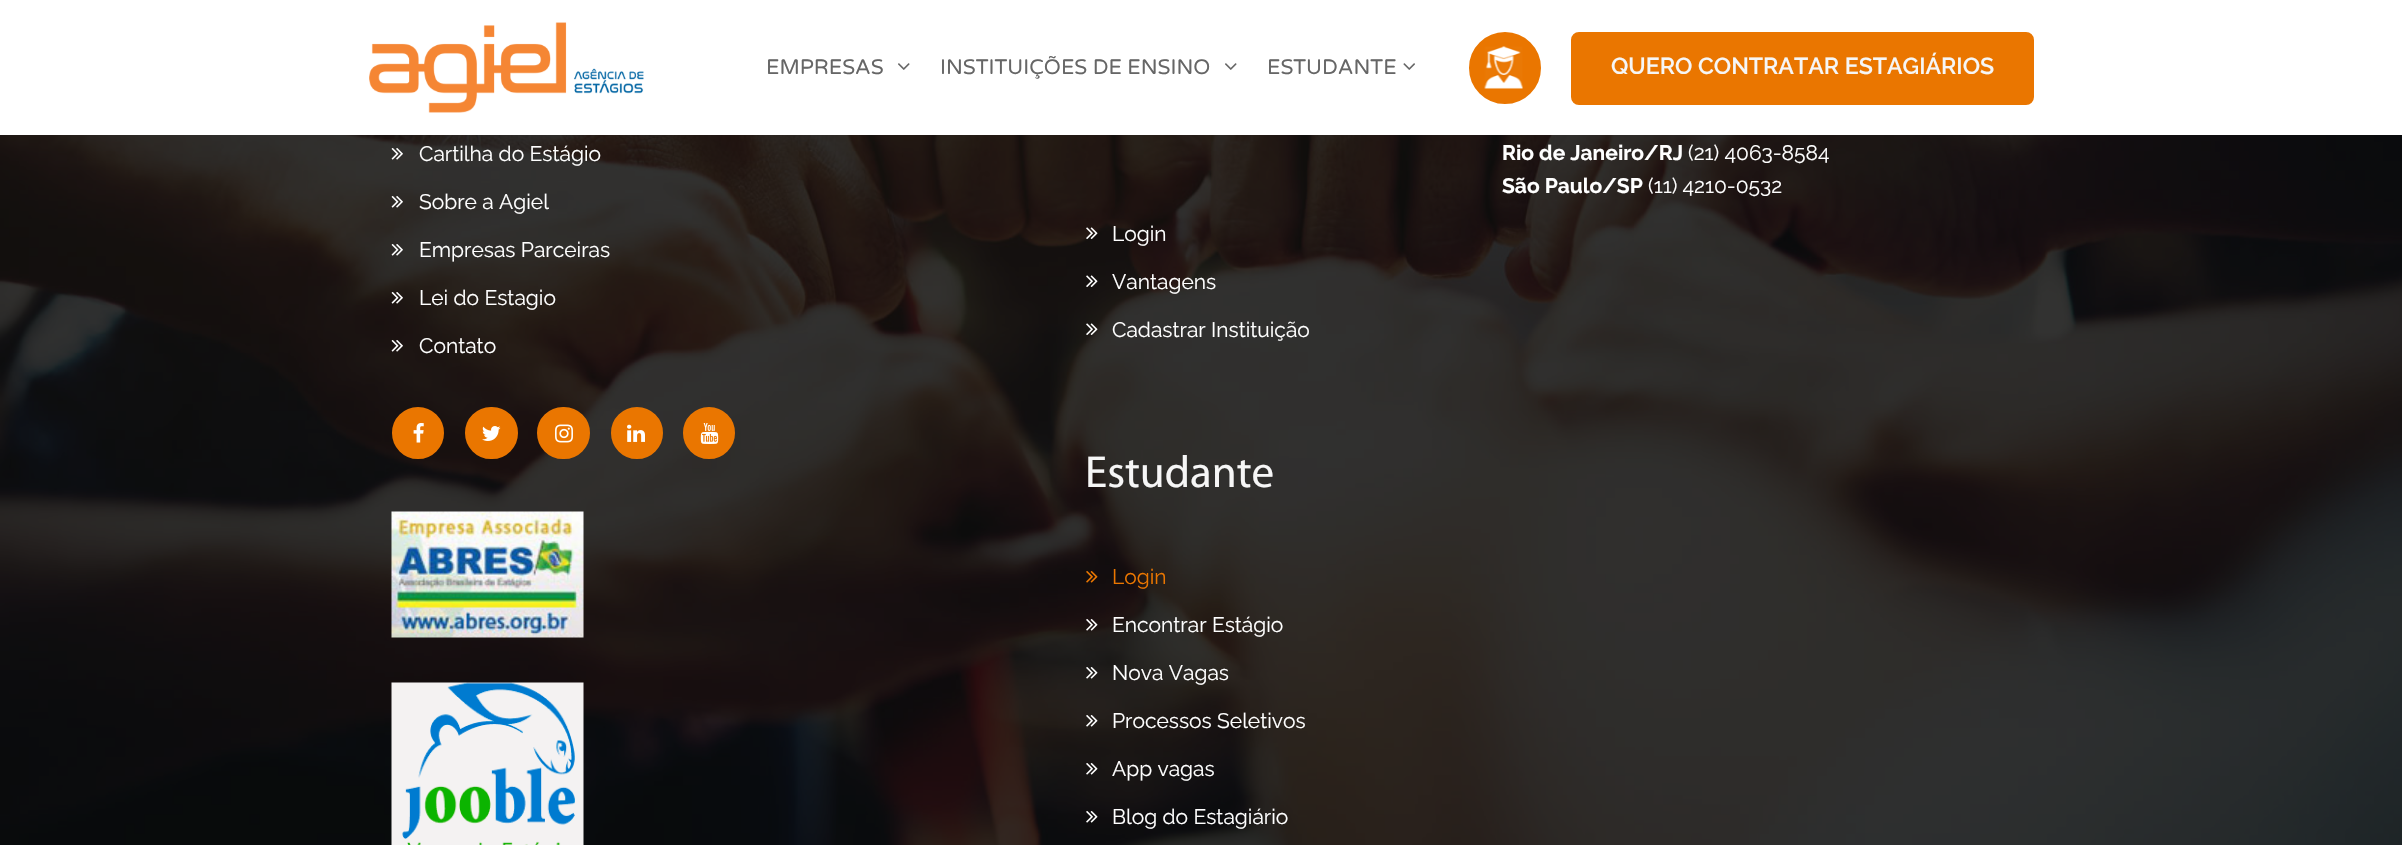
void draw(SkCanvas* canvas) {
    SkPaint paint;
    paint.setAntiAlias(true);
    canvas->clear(0xFFFFFFFF);
    canvas->drawImageRect(SkImages::DeferredFromEncodedData(SkData::MakeFromFileName("img1.png")), SkRect::MakeXYWH(369, 22, 275, 91), SkSamplingOptions());
    SkFont font1(fontMgr->matchFamilyStyle("Varela Round", SkFontStyle::Normal()), 21);
    font1.setSubpixel(true);
    paint.setColor(0xFF666666);
    canvas->drawString("EMPRESAS", 766, 74, font1, paint);
    canvas->drawImageRect(SkImages::DeferredFromEncodedData(SkData::MakeFromFileName("img2.png")), SkRect::MakeXYWH(898, 63, 12, 7), SkSamplingOptions());
    canvas->drawString("INSTITUIÇÕES DE ENSINO", 940, 74, font1, paint);
    canvas->drawImageRect(SkImages::DeferredFromEncodedData(SkData::MakeFromFileName("img2.png")), SkRect::MakeXYWH(1225, 63, 12, 7), SkSamplingOptions());
    canvas->drawString("ESTUDANTE", 1267, 74, font1, paint);
    canvas->drawImageRect(SkImages::DeferredFromEncodedData(SkData::MakeFromFileName("img3.png")), SkRect::MakeXYWH(1403, 63, 12, 7), SkSamplingOptions());
    paint.setColor(0xFFEA7600);
    canvas->drawCircle(1505, 68, 34.5f, paint);
    paint.setStyle(SkPaint::kStroke_Style);
    paint.setStrokeWidth(3);
    canvas->drawCircle(1505, 68, 34.5f, paint);
    canvas->drawImageRect(SkImages::DeferredFromEncodedData(SkData::MakeFromFileName("img4.png")), SkRect::MakeXYWH(1484, 46, 39, 43), SkSamplingOptions());
    paint.setStyle(SkPaint::kFill_Style);
    canvas->drawRoundRect(SkRect::MakeXYWH(1572.5f, 33.5f, 460, 70), 6.5f, 6.5f, paint);
    paint.setStyle(SkPaint::kStroke_Style);
    canvas->drawRoundRect(SkRect::MakeXYWH(1572.5f, 33.5f, 460, 70), 6.5f, 6.5f, paint);
    SkFont font2(fontMgr->matchFamilyStyle("Raleway", SkFontStyle(600, SkFontStyle::kNormal_Width, SkFontStyle::kUpright_Slant)), 23.1f);
    font2.setSubpixel(true);
    paint.setStyle(SkPaint::kFill_Style);
    paint.setColor(0xFFF6F6F6);
    canvas->drawString("QUERO CONTRATAR ESTAGIÁRIOS", 1611, 74, font2, paint);
    canvas->drawImageRect(SkImages::DeferredFromEncodedData(SkData::MakeFromFileName("img5.png")), SkRect::MakeXYWH(0, 135, 2402, 710), SkSamplingOptions());
    canvas->drawImageRect(SkImages::DeferredFromEncodedData(SkData::MakeFromFileName("img6.png")), SkRect::MakeXYWH(391, 148, 12, 12), SkSamplingOptions());
    SkFont font3(fontMgr->matchFamilyStyle("Raleway", SkFontStyle::Normal()), 21);
    font3.setSubpixel(true);
    paint.setColor(0xFFFFFFFF);
    canvas->drawString("Cartilha do Estágio", 419, 161, font3, paint);
    canvas->drawImageRect(SkImages::DeferredFromEncodedData(SkData::MakeFromFileName("img7.png")), SkRect::MakeXYWH(391, 196, 12, 12), SkSamplingOptions());
    canvas->drawString("Sobre a Agiel", 419, 209, font3, paint);
    canvas->drawImageRect(SkImages::DeferredFromEncodedData(SkData::MakeFromFileName("img8.png")), SkRect::MakeXYWH(391, 244, 12, 12), SkSamplingOptions());
    canvas->drawString("Empresas Parceiras", 419, 257, font3, paint);
    canvas->drawImageRect(SkImages::DeferredFromEncodedData(SkData::MakeFromFileName("img9.png")), SkRect::MakeXYWH(391, 292, 12, 12), SkSamplingOptions());
    canvas->drawString("Lei do Estagio", 419, 305, font3, paint);
    canvas->drawImageRect(SkImages::DeferredFromEncodedData(SkData::MakeFromFileName("img10.png")), SkRect::MakeXYWH(391, 340, 12, 12), SkSamplingOptions());
    canvas->drawString("Contato", 419, 353, font3, paint);
    paint.setColor(0xFFEA7600);
    canvas->drawCircle(418, 433, 25, paint);
    paint.setStyle(SkPaint::kStroke_Style);
    paint.setStrokeWidth(2);
    canvas->drawCircle(418, 433, 25, paint);
    canvas->drawImageRect(SkImages::DeferredFromEncodedData(SkData::MakeFromFileName("img11.png")), SkRect::MakeXYWH(413, 423, 11, 20), SkSamplingOptions());
    paint.setStyle(SkPaint::kFill_Style);
    canvas->drawRoundRect(SkRect::MakeXYWH(466, 408, 51, 50), 25, 25, paint);
    paint.setStyle(SkPaint::kStroke_Style);
    canvas->drawRoundRect(SkRect::MakeXYWH(466, 408, 51, 50), 25, 25, paint);
    canvas->drawImageRect(SkImages::DeferredFromEncodedData(SkData::MakeFromFileName("img12.png")), SkRect::MakeXYWH(482, 426, 19, 15), SkSamplingOptions());
    paint.setStyle(SkPaint::kFill_Style);
    canvas->drawRoundRect(SkRect::MakeXYWH(538, 408, 51, 50), 25, 25, paint);
    paint.setStyle(SkPaint::kStroke_Style);
    canvas->drawRoundRect(SkRect::MakeXYWH(538, 408, 51, 50), 25, 25, paint);
    canvas->drawImageRect(SkImages::DeferredFromEncodedData(SkData::MakeFromFileName("img13.png")), SkRect::MakeXYWH(555, 424, 18, 19), SkSamplingOptions());
    paint.setStyle(SkPaint::kFill_Style);
    canvas->drawCircle(637, 433, 25, paint);
    paint.setStyle(SkPaint::kStroke_Style);
    canvas->drawCircle(637, 433, 25, paint);
    canvas->drawImageRect(SkImages::DeferredFromEncodedData(SkData::MakeFromFileName("img14.png")), SkRect::MakeXYWH(627, 424, 18, 18), SkSamplingOptions());
    paint.setStyle(SkPaint::kFill_Style);
    canvas->drawCircle(709, 433, 25, paint);
    paint.setStyle(SkPaint::kStroke_Style);
    canvas->drawCircle(709, 433, 25, paint);
    canvas->drawImageRect(SkImages::DeferredFromEncodedData(SkData::MakeFromFileName("img15.png")), SkRect::MakeXYWH(700, 423, 19, 21), SkSamplingOptions());
    canvas->drawImageRect(SkImages::DeferredFromEncodedData(SkData::MakeFromFileName("img16.png")), SkRect::MakeXYWH(391, 511, 193, 127), SkSamplingOptions());
    canvas->drawImageRect(SkImages::DeferredFromEncodedData(SkData::MakeFromFileName("img17.png")), SkRect::MakeXYWH(391, 682, 193, 163), SkSamplingOptions());
    canvas->drawImageRect(SkImages::DeferredFromEncodedData(SkData::MakeFromFileName("img18.png")), SkRect::MakeXYWH(1086, 227, 12, 12), SkSamplingOptions());
    paint.setStyle(SkPaint::kFill_Style);
    paint.setColor(0xFFFFFFFF);
    canvas->drawString("Login", 1112, 241, font3, paint);
    canvas->drawImageRect(SkImages::DeferredFromEncodedData(SkData::MakeFromFileName("img19.png")), SkRect::MakeXYWH(1086, 275, 12, 12), SkSamplingOptions());
    canvas->drawString("Vantagens", 1112, 289, font3, paint);
    canvas->drawImageRect(SkImages::DeferredFromEncodedData(SkData::MakeFromFileName("img20.png")), SkRect::MakeXYWH(1086, 323, 12, 12), SkSamplingOptions());
    canvas->drawString("Cadastrar Instituição", 1112, 337, font3, paint);
    SkFont font4(fontMgr->matchFamilyStyle("Myriad", SkFontStyle::Normal()), 45);
    font4.setSubpixel(true);
    paint.setColor(0xFFF6F6F6);
    canvas->drawString("Estudante", 1085, 487, font4, paint);
    canvas->drawImageRect(SkImages::DeferredFromEncodedData(SkData::MakeFromFileName("img21.png")), SkRect::MakeXYWH(1086, 571, 12, 12), SkSamplingOptions());
    paint.setColor(0xFFEA7600);
    canvas->drawString("Login", 1112, 584, font3, paint);
    canvas->drawImageRect(SkImages::DeferredFromEncodedData(SkData::MakeFromFileName("img22.png")), SkRect::MakeXYWH(1086, 619, 12, 12), SkSamplingOptions());
    paint.setColor(0xFFFFFFFF);
    canvas->drawString("Encontrar Estágio", 1112, 632, font3, paint);
    canvas->drawImageRect(SkImages::DeferredFromEncodedData(SkData::MakeFromFileName("img23.png")), SkRect::MakeXYWH(1086, 667, 12, 12), SkSamplingOptions());
    canvas->drawString("Nova Vagas", 1112, 680, font3, paint);
    canvas->drawImageRect(SkImages::DeferredFromEncodedData(SkData::MakeFromFileName("img24.png")), SkRect::MakeXYWH(1086, 715, 12, 12), SkSamplingOptions());
    canvas->drawString("Processos Seletivos", 1112, 728, font3, paint);
    canvas->drawImageRect(SkImages::DeferredFromEncodedData(SkData::MakeFromFileName("img25.png")), SkRect::MakeXYWH(1086, 763, 12, 12), SkSamplingOptions());
    canvas->drawString("App vagas", 1112, 776, font3, paint);
    canvas->drawImageRect(SkImages::DeferredFromEncodedData(SkData::MakeFromFileName("img26.png")), SkRect::MakeXYWH(1086, 811, 12, 12), SkSamplingOptions());
    canvas->drawString("Blog do Estagiário", 1112, 824, font3, paint);
    SkFont font5(fontMgr->matchFamilyStyle("Raleway", SkFontStyle::Bold()), 21);
    font5.setSubpixel(true);
    canvas->drawString("Rio de Janeiro/RJ", 1502, 160, font5, paint);
    canvas->drawString("(21) 4063-8584", 1688, 160, font3, paint);
    canvas->drawString("São Paulo/SP", 1502, 193, font5, paint);
    canvas->drawString("(11) 4210-0532", 1648, 193, font3, paint);
}
